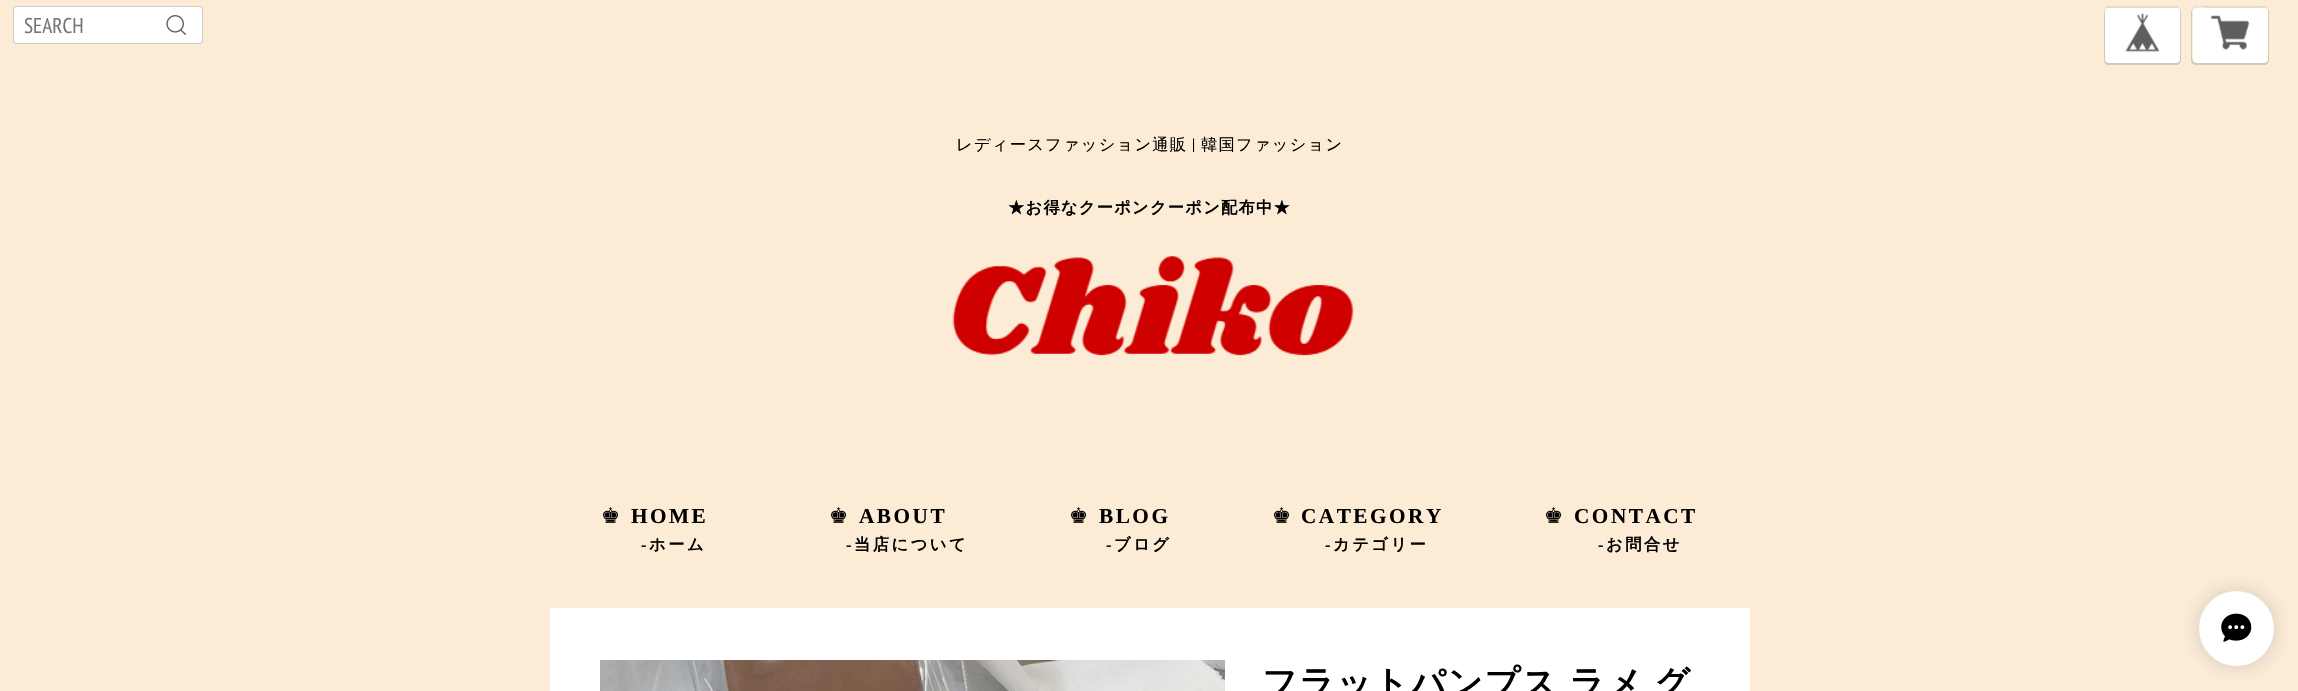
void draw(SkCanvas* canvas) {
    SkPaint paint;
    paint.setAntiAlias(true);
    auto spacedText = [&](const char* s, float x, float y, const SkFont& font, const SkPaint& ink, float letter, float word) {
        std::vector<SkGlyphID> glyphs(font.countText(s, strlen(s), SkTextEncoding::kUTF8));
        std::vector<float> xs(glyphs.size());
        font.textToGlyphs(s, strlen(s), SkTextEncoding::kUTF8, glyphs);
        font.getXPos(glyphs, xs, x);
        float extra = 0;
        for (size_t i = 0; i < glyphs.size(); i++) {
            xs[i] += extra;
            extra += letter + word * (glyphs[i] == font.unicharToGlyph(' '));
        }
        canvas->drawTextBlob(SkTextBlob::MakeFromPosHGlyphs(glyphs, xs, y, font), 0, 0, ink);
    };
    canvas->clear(0xFFFCEBD5);
    paint.setColor(0xFFFFFFFF);
    canvas->drawRoundRect(SkRect::MakeXYWH(13.5f, 6.5f, 189, 37), 3.5f, 3.5f, paint);
    paint.setStyle(SkPaint::kStroke_Style);
    paint.setStrokeWidth(1);
    paint.setColor(0xFFCCCCCC);
    canvas->drawRoundRect(SkRect::MakeXYWH(13.5f, 6.5f, 189, 37), 3.5f, 3.5f, paint);
    SkFont font1(fontMgr->matchFamilyStyle("PT Sans Narrow", SkFontStyle::Normal()), 21.25f);
    font1.setSubpixel(true);
    paint.setStyle(SkPaint::kFill_Style);
    paint.setColor(0xFF757575);
    canvas->drawString("SEARCH", 24, 33, font1, paint);
    canvas->drawImageRect(SkImages::DeferredFromEncodedData(SkData::MakeFromFileName("img1.png")), SkRect::MakeXYWH(166, 15, 21, 20), SkSamplingOptions());
    paint.setColor(0xFFE8DAC8);
    canvas->drawPath(SkPathBuilder().moveTo(2109, 6).cubicTo(2106, 6, 2105, 9, 2105, 11).cubicTo(2105, 9, 2107, 8, 2109, 8).lineTo(2176, 8).cubicTo(2178, 8, 2180, 9, 2180, 11).cubicTo(2180, 9, 2179, 6, 2176, 6).close().detach(), paint);
    paint.setColor(0xFFD3C9BC);
    canvas->drawPath(SkPathBuilder().moveTo(2105, 9).cubicTo(2105, 10, 2104, 12, 2104, 13).lineTo(2104, 60).cubicTo(2104, 63, 2106, 65, 2109, 65).lineTo(2176, 65).cubicTo(2179, 65, 2181, 63, 2181, 60).lineTo(2181, 13).cubicTo(2181, 12, 2180, 10, 2180, 9).lineTo(2180, 11).lineTo(2180, 59).cubicTo(2180, 61, 2178, 62, 2176, 62).lineTo(2109, 62).cubicTo(2107, 62, 2105, 61, 2105, 59).lineTo(2105, 11).close().detach(), paint);
    paint.setColor(0xFFFFFFFF);
    canvas->drawRoundRect(SkRect::MakeXYWH(2105, 8, 75, 55), 4, 4, paint);
    canvas->drawImageRect(SkImages::DeferredFromEncodedData(SkData::MakeFromFileName("img2.png")), SkRect::MakeXYWH(2125, 13, 35, 39), SkSamplingOptions());
    paint.setColor(0xFFE8DAC8);
    canvas->drawPath(SkPathBuilder().moveTo(2197, 6).cubicTo(2195, 6, 2193, 7, 2193, 9).cubicTo(2196, 5, 2207, 8, 2208, 8).lineTo(2252, 8).cubicTo(2268, 8, 2268, 5, 2268, 19).lineTo(2267, 59).lineTo(2268, 57).lineTo(2268, 10).cubicTo(2268, 8, 2266, 6, 2264, 6).close().detach(), paint);
    paint.setColor(0xFFD3C9BC);
    canvas->drawPath(SkPathBuilder().moveTo(2194, 9).cubicTo(2192, 9, 2191, 11, 2191, 13).lineTo(2191, 60).cubicTo(2191, 63, 2193, 65, 2196, 65).lineTo(2264, 65).cubicTo(2267, 65, 2269, 63, 2269, 60).lineTo(2269, 13).cubicTo(2269, 11, 2268, 9, 2266, 9).cubicTo(2267, 9, 2268, 10, 2268, 11).lineTo(2268, 59).cubicTo(2268, 61, 2266, 62, 2264, 62).lineTo(2196, 62).cubicTo(2194, 62, 2192, 61, 2192, 59).lineTo(2192, 11).cubicTo(2192, 10, 2193, 9, 2194, 9).close().detach(), paint);
    paint.setColor(0xFFFFFFFF);
    canvas->drawRoundRect(SkRect::MakeXYWH(2193, 8, 75, 55), 4, 4, paint);
    canvas->drawImageRect(SkImages::DeferredFromEncodedData(SkData::MakeFromFileName("img3.png")), SkRect::MakeXYWH(2210, 15, 39, 35), SkSamplingOptions());
    SkFont font2(fontMgr->matchFamilyStyle("WenQuanYi Zen Hei", SkFontStyle(500, SkFontStyle::kNormal_Width, SkFontStyle::kUpright_Slant)), 16.25f);
    font2.setSubpixel(true);
    paint.setColor(0xFF000000);
    spacedText("レディースファッション通販", 956, 150, font2, paint, 1.25f, 0);
    SkFont font3(fontMgr->matchFamilyStyle("PT Sans Narrow", SkFontStyle::Normal()), 16.25f);
    font3.setSubpixel(true);
    spacedText("|", 1192, 150, font3, paint, 1.25f, 0);
    spacedText("韓国ファッション", 1201, 150, font2, paint, 1.25f, 0);
    SkFont font4(fontMgr->matchFamilyStyle("WenQuanYi Zen Hei", SkFontStyle::Bold()), 16.25f);
    font4.setSubpixel(true);
    spacedText("★お得なクーポンクーポン配布中★", 1008, 213, font4, paint, 1.25f, 0);
    canvas->drawImageRect(SkImages::DeferredFromEncodedData(SkData::MakeFromFileName("img4.png")), SkRect::MakeXYWH(952, 256, 402, 100), SkSamplingOptions());
    SkFont font5(fontMgr->matchFamilyStyle("DejaVu Sans", SkFontStyle::Normal()), 21.25f);
    font5.setSubpixel(true);
    spacedText("♚", 601, 523, font5, paint, 2.5f, 0);
    SkFont font6(fontMgr->matchFamilyStyle("Liberation Serif", SkFontStyle::Bold()), 21.25f);
    font6.setSubpixel(true);
    spacedText("HOME", 631, 523, font6, paint, 2.5f, 0);
    SkFont font7(fontMgr->matchFamilyStyle("Liberation Serif", SkFontStyle::Bold()), 16.25f);
    font7.setSubpixel(true);
    spacedText("-", 641, 550, font7, paint, 2.5f, 0);
    spacedText("ホーム", 649, 550, font4, paint, 2.5f, 0);
    spacedText("♚", 829, 523, font5, paint, 2.5f, 0);
    spacedText("ABOUT", 859, 523, font6, paint, 2.5f, 0);
    spacedText("-", 846, 550, font7, paint, 2.5f, 0);
    spacedText("当店について", 854, 550, font4, paint, 2.5f, 0);
    spacedText("♚", 1069, 523, font5, paint, 2.5f, 0);
    spacedText("BLOG", 1099, 523, font6, paint, 2.5f, 0);
    spacedText("-", 1106, 550, font7, paint, 2.5f, 0);
    spacedText("ブログ", 1114, 550, font4, paint, 2.5f, 0);
    spacedText("♚", 1272, 523, font5, paint, 2.5f, 0);
    spacedText("CATEGORY", 1301, 523, font6, paint, 2.5f, 0);
    spacedText("-", 1325, 550, font7, paint, 2.5f, 0);
    spacedText("カテゴリー", 1333, 550, font4, paint, 2.5f, 0);
    spacedText("♚", 1544, 523, font5, paint, 2.5f, 0);
    spacedText("CONTACT", 1574, 523, font6, paint, 2.5f, 0);
    spacedText("-", 1598, 550, font7, paint, 2.5f, 0);
    spacedText("お問合せ", 1606, 550, font4, paint, 2.5f, 0);
    paint.setColor(0xFFFFFFFF);
    canvas->drawRect(SkRect::MakeXYWH(550, 608, 1200, 83), paint);
    canvas->drawImageRect(SkImages::DeferredFromEncodedData(SkData::MakeFromFileName("img5.png")), SkRect::MakeXYWH(600, 660, 625, 31), SkSamplingOptions());
    SkFont font8(fontMgr->matchFamilyStyle("WenQuanYi Zen Hei", SkFontStyle::Bold()), 35);
    font8.setSubpixel(true);
    paint.setColor(0xFF000000);
    spacedText("フラットパンプス ラメ グ", 1262, 695, font8, paint, 1.25f, -1);
    paint.setColor(0x33334258);
    paint.setMaskFilter(SkMaskFilter::MakeBlur(kNormal_SkBlurStyle, 9.5f));
    canvas->drawRoundRect(SkRect::MakeXYWH(2199, 591, 75, 75), 37.5f, 37.5f, paint);
    paint.setMaskFilter(nullptr);
    paint.setColor(0xFFFFFFFF);
    canvas->drawCircle(2236.5f, 628.5f, 37.5f, paint);
    canvas->drawImageRect(SkImages::DeferredFromEncodedData(SkData::MakeFromFileName("img6.png")), SkRect::MakeXYWH(2221, 613, 31, 29), SkSamplingOptions());
}
